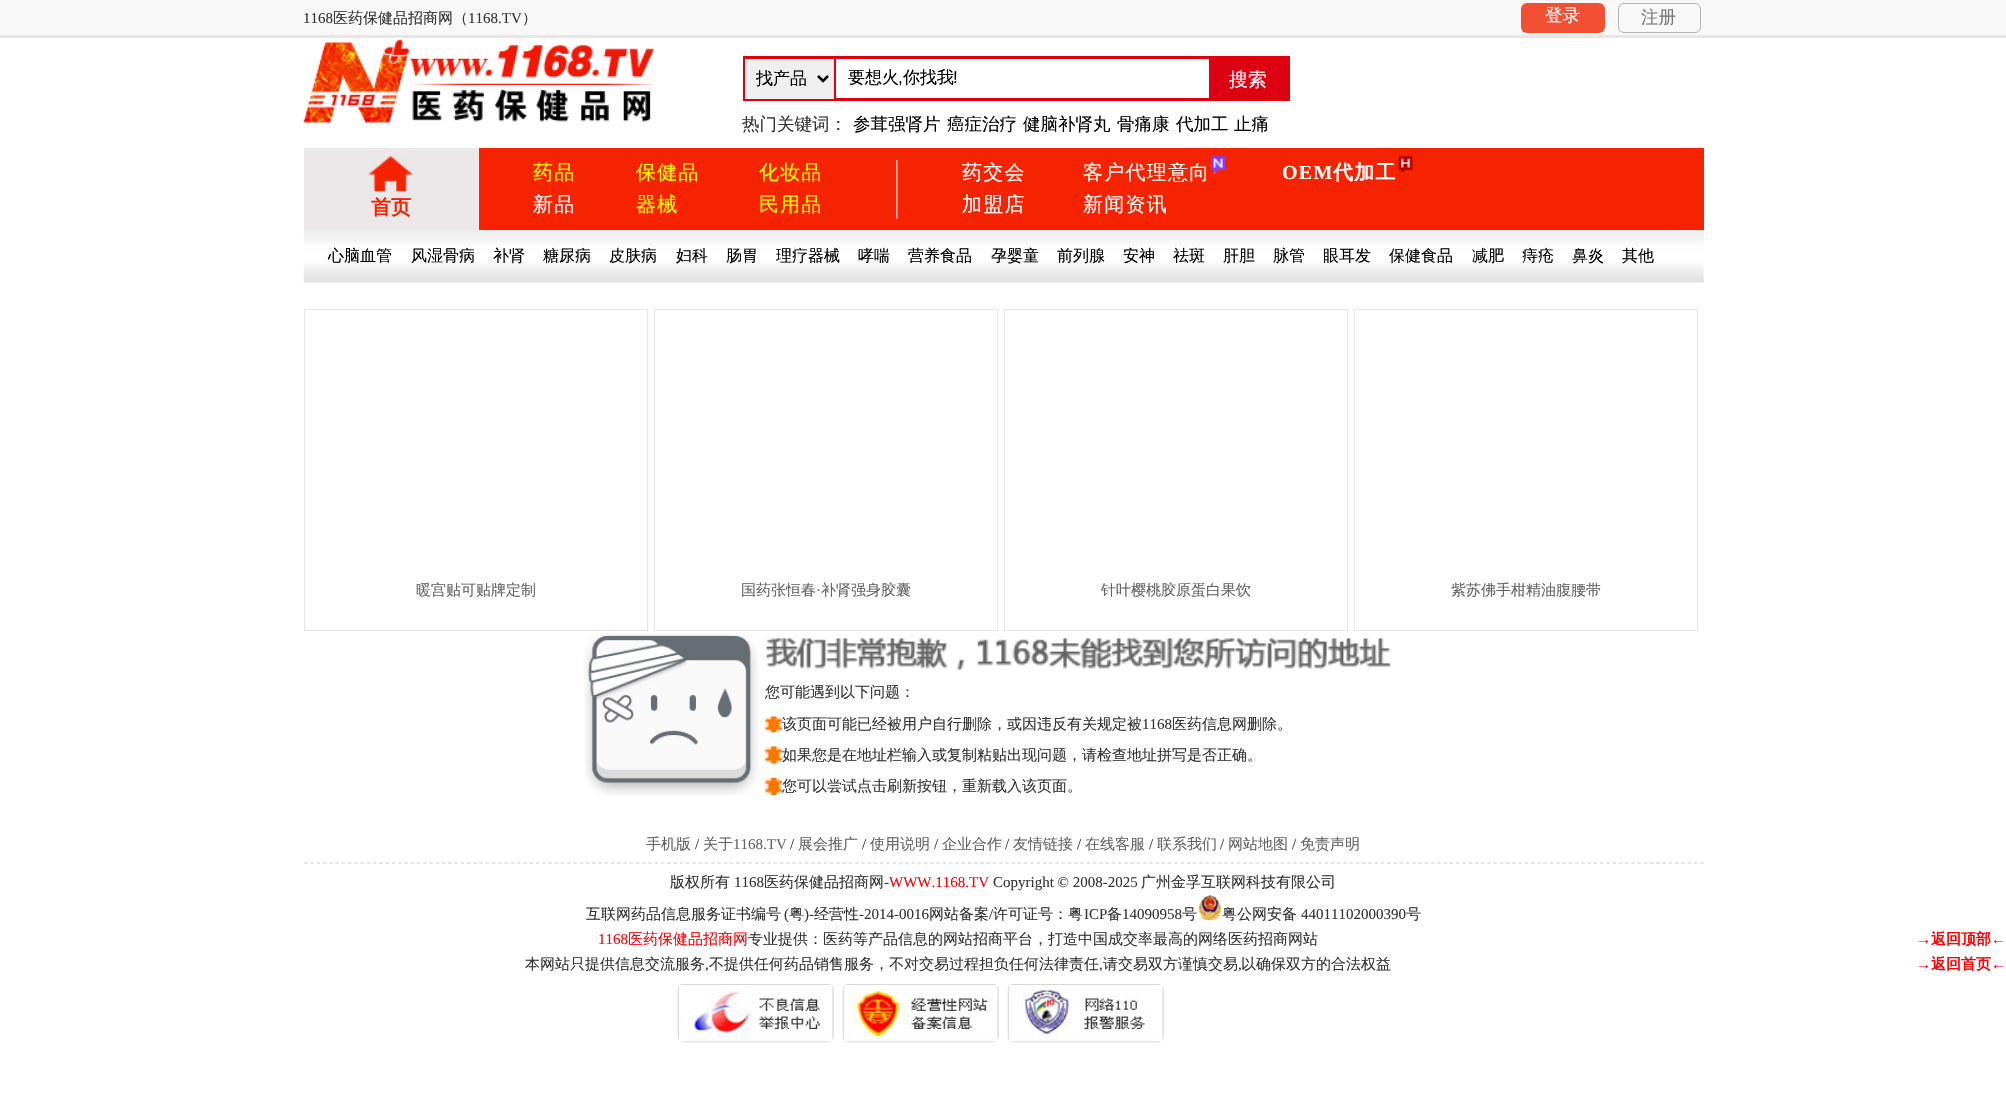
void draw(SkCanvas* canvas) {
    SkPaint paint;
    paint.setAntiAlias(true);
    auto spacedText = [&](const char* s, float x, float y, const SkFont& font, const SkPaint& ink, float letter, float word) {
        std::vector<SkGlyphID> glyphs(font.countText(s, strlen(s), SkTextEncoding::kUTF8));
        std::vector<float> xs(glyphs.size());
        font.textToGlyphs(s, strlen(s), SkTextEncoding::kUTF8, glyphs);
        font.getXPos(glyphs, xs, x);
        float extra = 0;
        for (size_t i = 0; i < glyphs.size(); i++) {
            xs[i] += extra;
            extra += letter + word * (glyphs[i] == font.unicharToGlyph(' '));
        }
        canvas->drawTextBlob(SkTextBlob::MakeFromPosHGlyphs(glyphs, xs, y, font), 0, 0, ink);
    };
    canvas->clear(0xFFFFFFFF);
    paint.setColor(0xFFF8F8F8);
    canvas->drawRect(SkRect::MakeXYWH(0, 0, 2006, 35), paint);
    paint.setColor(0xFFE6E6E6);
    canvas->drawRect(SkRect::MakeXYWH(0, 35, 2006, 3), paint);
    SkFont font1(fontMgr->matchFamilyStyle("Liberation Serif", SkFontStyle::Normal()), 15);
    font1.setSubpixel(true);
    paint.setColor(0xFF333333);
    canvas->drawString("1168", 303, 23, font1, paint);
    SkFont font2(fontMgr->matchFamilyStyle("WenQuanYi Zen Hei", SkFontStyle(500, SkFontStyle::kNormal_Width, SkFontStyle::kUpright_Slant)), 15);
    font2.setSubpixel(true);
    canvas->drawString("医药保健品招商网（", 333, 23, font2, paint);
    canvas->drawString("1168.TV", 468, 23, font1, paint);
    canvas->drawString("）", 522, 23, font2, paint);
    paint.setColor(0xFFF34F33);
    canvas->drawRoundRect(SkRect::MakeXYWH(1521, 3, 84, 30), 6, 6, paint);
    SkFont font3(fontMgr->matchFamilyStyle("WenQuanYi Zen Hei", SkFontStyle(500, SkFontStyle::kNormal_Width, SkFontStyle::kUpright_Slant)), 17.5f);
    font3.setSubpixel(true);
    paint.setColor(0xFFFFFFFF);
    canvas->drawString("登录", 1545, 21, font3, paint);
    paint.setStyle(SkPaint::kStroke_Style);
    paint.setStrokeWidth(1);
    paint.setColor(0xFFB3B3B3);
    canvas->drawRoundRect(SkRect::MakeXYWH(1618.5f, 3.5f, 82, 29), 5.5f, 5.5f, paint);
    paint.setStyle(SkPaint::kFill_Style);
    paint.setColor(0xFF797979);
    canvas->drawString("注册", 1641, 23, font3, paint);
    canvas->drawImageRect(SkImages::DeferredFromEncodedData(SkData::MakeFromFileName("img1.png")), SkRect::MakeXYWH(303, 37, 351, 86), SkSamplingOptions());
    paint.setStyle(SkPaint::kStroke_Style);
    paint.setStrokeWidth(3);
    paint.setColor(0xFFDD0011);
    canvas->drawRect(SkRect::MakeXYWH(744.5f, 57.5f, 544, 42), paint);
    paint.setStyle(SkPaint::kFill_Style);
    canvas->drawRect(SkRect::MakeXYWH(834, 59, 3, 40), paint);
    paint.setColor(0xFFEFEFEF);
    canvas->drawRect(SkRect::MakeXYWH(745, 59, 89, 40), paint);
    paint.setStyle(SkPaint::kStroke_Style);
    paint.setStrokeWidth(2.5f);
    paint.setColor(0xFF000000);
    canvas->drawPath(SkPathBuilder().moveTo(818, 76).lineTo(823, 81).lineTo(828, 76).detach(), paint);
    SkFont font4(fontMgr->matchFamilyStyle("WenQuanYi Zen Hei", SkFontStyle(500, SkFontStyle::kNormal_Width, SkFontStyle::kUpright_Slant)), 17);
    font4.setSubpixel(true);
    paint.setStyle(SkPaint::kFill_Style);
    canvas->drawString("找产品", 756, 84, font4, paint);
    paint.setColor(0xFFFFFFFF);
    canvas->drawRect(SkRect::MakeXYWH(836, 59, 1, 39), paint);
    paint.setColor(0xFF000000);
    canvas->drawString("要想火", 848, 83, font4, paint);
    canvas->drawString("你找我", 903, 83, font4, paint);
    SkFont font5(fontMgr->matchFamilyStyle("Liberation Sans", SkFontStyle::Normal()), 17);
    font5.setSubpixel(true);
    canvas->drawString("!", 953, 83, font5, paint);
    canvas->drawString(",", 898, 83, font5, paint);
    paint.setColor(0xFFDD0011);
    canvas->drawRect(SkRect::MakeXYWH(1209, 59, 78, 39), paint);
    SkFont font6(fontMgr->matchFamilyStyle("WenQuanYi Zen Hei", SkFontStyle(500, SkFontStyle::kNormal_Width, SkFontStyle::kUpright_Slant)), 19);
    font6.setSubpixel(true);
    paint.setColor(0xFFFFFFFF);
    canvas->drawString("搜索", 1229, 86, font6, paint);
    paint.setColor(0xFF333333);
    canvas->drawString("热门关键词：", 742, 130, font3, paint);
    paint.setColor(0xFF000000);
    canvas->drawString("参茸强肾片", 853, 130, font3, paint);
    canvas->drawString("癌症治疗", 947, 130, font3, paint);
    canvas->drawString("健脑补肾丸", 1023, 130, font3, paint);
    canvas->drawString("骨痛康", 1117, 130, font3, paint);
    canvas->drawString("代加工", 1176, 130, font3, paint);
    canvas->drawString("止痛", 1234, 130, font3, paint);
    paint.setColor(0xFFF52300);
    canvas->drawRect(SkRect::MakeXYWH(479, 148, 1225, 82), paint);
    paint.setColor(0xFFEAE8E9);
    canvas->drawRect(SkRect::MakeXYWH(304, 148, 175, 82), paint);
    canvas->drawImageRect(SkImages::DeferredFromEncodedData(SkData::MakeFromFileName("img2.png")), SkRect::MakeXYWH(368, 156, 45, 36), SkSamplingOptions());
    SkFont font7(fontMgr->matchFamilyStyle("WenQuanYi Zen Hei", SkFontStyle::Bold()), 20);
    font7.setSubpixel(true);
    paint.setColor(0xFFF52300);
    canvas->drawString("首页", 371, 214, font7, paint);
    SkFont font8(fontMgr->matchFamilyStyle("WenQuanYi Zen Hei", SkFontStyle(500, SkFontStyle::kNormal_Width, SkFontStyle::kUpright_Slant)), 20);
    font8.setSubpixel(true);
    paint.setColor(0xFFFFFF00);
    spacedText("药品", 533, 179, font8, paint, 1.25f, 0);
    paint.setColor(0xFFFFFFFF);
    spacedText("新品", 533, 211, font8, paint, 1.25f, 0);
    paint.setColor(0xFFFFFF00);
    spacedText("保健品", 636, 179, font8, paint, 1.25f, 0);
    spacedText("器械", 636, 211, font8, paint, 1.25f, 0);
    spacedText("化妆品", 759, 179, font8, paint, 1.25f, 0);
    spacedText("民用品", 759, 211, font8, paint, 1.25f, 0);
    canvas->drawImageRect(SkImages::DeferredFromEncodedData(SkData::MakeFromFileName("img3.png")), SkRect::MakeXYWH(896, 160, 2, 59), SkSamplingOptions());
    paint.setColor(0xFFFFFFFF);
    spacedText("药交会", 962, 179, font8, paint, 1.25f, 0);
    spacedText("加盟店", 962, 211, font8, paint, 1.25f, 0);
    canvas->drawImageRect(SkImages::DeferredFromEncodedData(SkData::MakeFromFileName("img4.png")), SkRect::MakeXYWH(1211, 156, 14, 18), SkSamplingOptions());
    spacedText("客户代理意向", 1083, 179, font8, paint, 1.25f, 0);
    spacedText("新闻资讯", 1083, 211, font8, paint, 1.25f, 0);
    canvas->drawImageRect(SkImages::DeferredFromEncodedData(SkData::MakeFromFileName("img5.png")), SkRect::MakeXYWH(1398, 156, 15, 18), SkSamplingOptions());
    SkFont font9(fontMgr->matchFamilyStyle("Liberation Serif", SkFontStyle::Bold()), 20);
    font9.setSubpixel(true);
    spacedText("OEM", 1282, 179, font9, paint, 1.25f, 0);
    spacedText("代加工", 1333, 179, font7, paint, 1.25f, 0);
    canvas->drawImageRect(SkImages::DeferredFromEncodedData(SkData::MakeFromFileName("img6.png")), SkRect::MakeXYWH(303, 230, 1401, 53), SkSamplingOptions());
    SkFont font10(fontMgr->matchFamilyStyle("WenQuanYi Zen Hei", SkFontStyle(500, SkFontStyle::kNormal_Width, SkFontStyle::kUpright_Slant)), 16);
    font10.setSubpixel(true);
    paint.setColor(0xFF000000);
    canvas->drawString("心脑血管", 328, 261, font10, paint);
    canvas->drawString("风湿骨病", 411, 261, font10, paint);
    canvas->drawString("补肾", 493, 261, font10, paint);
    canvas->drawString("糖尿病", 543, 261, font10, paint);
    canvas->drawString("皮肤病", 609, 261, font10, paint);
    canvas->drawString("妇科", 676, 261, font10, paint);
    canvas->drawString("肠胃", 726, 261, font10, paint);
    canvas->drawString("理疗器械", 776, 261, font10, paint);
    canvas->drawString("哮喘", 858, 261, font10, paint);
    canvas->drawString("营养食品", 908, 261, font10, paint);
    canvas->drawString("孕婴童", 991, 261, font10, paint);
    canvas->drawString("前列腺", 1057, 261, font10, paint);
    canvas->drawString("安神", 1123, 261, font10, paint);
    canvas->drawString("祛斑", 1173, 261, font10, paint);
    canvas->drawString("肝胆", 1223, 261, font10, paint);
    canvas->drawString("脉管", 1273, 261, font10, paint);
    canvas->drawString("眼耳发", 1323, 261, font10, paint);
    canvas->drawString("保健食品", 1389, 261, font10, paint);
    canvas->drawString("减肥", 1472, 261, font10, paint);
    canvas->drawString("痔疮", 1522, 261, font10, paint);
    canvas->drawString("鼻炎", 1572, 261, font10, paint);
    canvas->drawString("其他", 1622, 261, font10, paint);
    paint.setStyle(SkPaint::kStroke_Style);
    paint.setStrokeWidth(1);
    paint.setColor(0xFFE4E4E4);
    canvas->drawRect(SkRect::MakeXYWH(304.5f, 309.5f, 343, 321), paint);
    paint.setStyle(SkPaint::kFill_Style);
    paint.setColor(0xFF636363);
    canvas->drawString("暖宫贴可贴牌定制", 416, 595, font2, paint);
    paint.setStyle(SkPaint::kStroke_Style);
    paint.setColor(0xFFE4E4E4);
    canvas->drawRect(SkRect::MakeXYWH(654.5f, 309.5f, 343, 321), paint);
    paint.setStyle(SkPaint::kFill_Style);
    paint.setColor(0xFF636363);
    canvas->drawString("国药张恒春", 741, 595, font2, paint);
    canvas->drawString("·", 816, 595, font1, paint);
    canvas->drawString("补肾强身胶囊", 821, 595, font2, paint);
    paint.setStyle(SkPaint::kStroke_Style);
    paint.setColor(0xFFE4E4E4);
    canvas->drawRect(SkRect::MakeXYWH(1004.5f, 309.5f, 343, 321), paint);
    paint.setStyle(SkPaint::kFill_Style);
    paint.setColor(0xFF636363);
    canvas->drawString("针叶樱桃胶原蛋白果饮", 1101, 595, font2, paint);
    paint.setStyle(SkPaint::kStroke_Style);
    paint.setColor(0xFFE4E4E4);
    canvas->drawRect(SkRect::MakeXYWH(1354.5f, 309.5f, 343, 321), paint);
    paint.setStyle(SkPaint::kFill_Style);
    paint.setColor(0xFF636363);
    canvas->drawString("紫苏佛手柑精油腹腰带", 1451, 595, font2, paint);
    canvas->drawImageRect(SkImages::DeferredFromEncodedData(SkData::MakeFromFileName("img7.png")), SkRect::MakeXYWH(584, 633, 175, 163), SkSamplingOptions());
    canvas->drawImageRect(SkImages::DeferredFromEncodedData(SkData::MakeFromFileName("img8.png")), SkRect::MakeXYWH(765, 638, 626, 32), SkSamplingOptions());
    paint.setColor(0xFF333333);
    canvas->drawString("您可能遇到以下问题：", 765, 697, font2, paint);
    canvas->drawImageRect(SkImages::DeferredFromEncodedData(SkData::MakeFromFileName("img9.png")), SkRect::MakeXYWH(765, 716, 18, 17), SkSamplingOptions());
    canvas->drawString("该页面可能已经被用户自行删除，或因违反有关规定被", 782, 729, font2, paint);
    canvas->drawString("1168", 1142, 729, font1, paint);
    canvas->drawString("医药信息网删除。", 1172, 729, font2, paint);
    canvas->drawImageRect(SkImages::DeferredFromEncodedData(SkData::MakeFromFileName("img10.png")), SkRect::MakeXYWH(765, 746, 18, 18), SkSamplingOptions());
    canvas->drawString("如果您是在地址栏输入或复制粘贴出现问题，请检查地址拼写是否正确。", 782, 760, font2, paint);
    canvas->drawImageRect(SkImages::DeferredFromEncodedData(SkData::MakeFromFileName("img11.png")), SkRect::MakeXYWH(765, 777, 18, 18), SkSamplingOptions());
    canvas->drawString("您可以尝试点击刷新按钮，重新载入该页面。", 782, 791, font2, paint);
    paint.setStyle(SkPaint::kStroke_Style);
    paint.setStrokeWidth(1.2f);
    paint.setColor(0xFFCCCCCC);
    paint.setPathEffect(SkDashPathEffect::Make({{3.75f, 2.51f}}, 0));
    canvas->drawPath(SkPathBuilder().moveTo(304, 863).lineTo(1704, 863).detach(), paint);
    paint.setPathEffect(nullptr);
    paint.setStyle(SkPaint::kFill_Style);
    paint.setColor(0xFF636363);
    canvas->drawString("手机版", 646, 849, font2, paint);
    paint.setColor(0xFF333333);
    canvas->drawString("/", 695, 849, font1, paint);
    paint.setColor(0xFF636363);
    canvas->drawString("关于", 703, 849, font2, paint);
    canvas->drawString("1168.TV", 733, 849, font1, paint);
    paint.setColor(0xFF333333);
    canvas->drawString("/", 790, 849, font1, paint);
    paint.setColor(0xFF636363);
    canvas->drawString("展会推广", 798, 849, font2, paint);
    paint.setColor(0xFF333333);
    canvas->drawString("/", 862, 849, font1, paint);
    paint.setColor(0xFF636363);
    canvas->drawString("使用说明", 870, 849, font2, paint);
    paint.setColor(0xFF333333);
    canvas->drawString("/", 934, 849, font1, paint);
    paint.setColor(0xFF636363);
    canvas->drawString("企业合作", 942, 849, font2, paint);
    paint.setColor(0xFF333333);
    canvas->drawString("/", 1005, 849, font1, paint);
    paint.setColor(0xFF636363);
    canvas->drawString("友情链接", 1013, 849, font2, paint);
    paint.setColor(0xFF333333);
    canvas->drawString("/", 1077, 849, font1, paint);
    paint.setColor(0xFF636363);
    canvas->drawString("在线客服", 1085, 849, font2, paint);
    paint.setColor(0xFF333333);
    canvas->drawString("/", 1149, 849, font1, paint);
    paint.setColor(0xFF636363);
    canvas->drawString("联系我们", 1157, 849, font2, paint);
    paint.setColor(0xFF333333);
    canvas->drawString("/", 1220, 849, font1, paint);
    paint.setColor(0xFF636363);
    canvas->drawString("网站地图", 1228, 849, font2, paint);
    paint.setColor(0xFF333333);
    canvas->drawString("/", 1292, 849, font1, paint);
    paint.setColor(0xFF636363);
    canvas->drawString("免责声明", 1300, 849, font2, paint);
    paint.setColor(0xFF333333);
    canvas->drawString("版权所有", 670, 887, font2, paint);
    canvas->drawString("1168", 734, 887, font1, paint);
    canvas->drawString("医药保健品招商网", 764, 887, font2, paint);
    canvas->drawString("-", 884, 887, font1, paint);
    paint.setColor(0xFFFF0000);
    canvas->drawString("WWW.1168.TV", 889, 887, font1, paint);
    paint.setColor(0xFF333333);
    canvas->drawString("Copyright © 2008-2025", 993, 887, font1, paint);
    canvas->drawString("广州金孚互联网科技有限公司", 1141, 887, font2, paint);
    canvas->drawString("互联网药品信息服务证书编号", 586, 919, font2, paint);
    canvas->drawString("(", 784, 919, font1, paint);
    canvas->drawString("粤", 789, 919, font2, paint);
    canvas->drawString(")-", 804, 919, font1, paint);
    canvas->drawString("经营性", 814, 919, font2, paint);
    canvas->drawString("-2014-0016", 859, 919, font1, paint);
    canvas->drawString("网站备案", 929, 919, font2, paint);
    canvas->drawString("/", 989, 919, font1, paint);
    canvas->drawString("许可证号：粤", 993, 919, font2, paint);
    canvas->drawString("ICP", 1084, 919, font1, paint);
    canvas->drawString("备", 1107, 919, font2, paint);
    canvas->drawString("14090958", 1122, 919, font1, paint);
    canvas->drawString("号", 1182, 919, font2, paint);
    canvas->drawImageRect(SkImages::DeferredFromEncodedData(SkData::MakeFromFileName("img12.png")), SkRect::MakeXYWH(1198, 895, 24, 25), SkSamplingOptions());
    canvas->drawString("粤公网安备", 1222, 919, font2, paint);
    canvas->drawString("44011102000390", 1301, 919, font1, paint);
    canvas->drawString("号", 1406, 919, font2, paint);
    paint.setColor(0xFFFF0000);
    canvas->drawString("1168", 598, 944, font1, paint);
    canvas->drawString("医药保健品招商网", 628, 944, font2, paint);
    paint.setColor(0xFF333333);
    canvas->drawString("专业提供：医药等产品信息的网站招商平台，打造中国成交率最高的网络医药招商网站", 748, 944, font2, paint);
    SkFont font11(fontMgr->matchFamilyStyle("Liberation Serif", SkFontStyle::Bold()), 15);
    font11.setSubpixel(true);
    paint.setColor(0xFFFF0000);
    canvas->drawString("→", 1916, 944, font11, paint);
    SkFont font12(fontMgr->matchFamilyStyle("WenQuanYi Zen Hei", SkFontStyle::Bold()), 15);
    font12.setSubpixel(true);
    canvas->drawString("返回顶部", 1931, 944, font12, paint);
    canvas->drawString("←", 1991, 944, font11, paint);
    paint.setColor(0xFF333333);
    canvas->drawString("本网站只提供信息交流服务", 525, 969, font2, paint);
    canvas->drawString(",", 705, 969, font1, paint);
    canvas->drawString("不提供任何药品销售服务，不对交易过程担负任何法律责任", 709, 969, font2, paint);
    canvas->drawString(",", 1099, 969, font1, paint);
    canvas->drawString("请交易双方谨慎交易", 1103, 969, font2, paint);
    canvas->drawString(",", 1238, 969, font1, paint);
    canvas->drawString("以确保双方的合法权益", 1241, 969, font2, paint);
    paint.setColor(0xFFFF0000);
    canvas->drawString("→", 1916, 969, font11, paint);
    canvas->drawString("返回首页", 1931, 969, font12, paint);
    canvas->drawString("←", 1991, 969, font11, paint);
    canvas->drawImageRect(SkImages::DeferredFromEncodedData(SkData::MakeFromFileName("img13.png")), SkRect::MakeXYWH(677, 984, 157, 59), SkSamplingOptions());
    canvas->drawImageRect(SkImages::DeferredFromEncodedData(SkData::MakeFromFileName("img14.png")), SkRect::MakeXYWH(842, 984, 157, 59), SkSamplingOptions());
    canvas->drawImageRect(SkImages::DeferredFromEncodedData(SkData::MakeFromFileName("img15.png")), SkRect::MakeXYWH(1007, 984, 157, 59), SkSamplingOptions());
}
